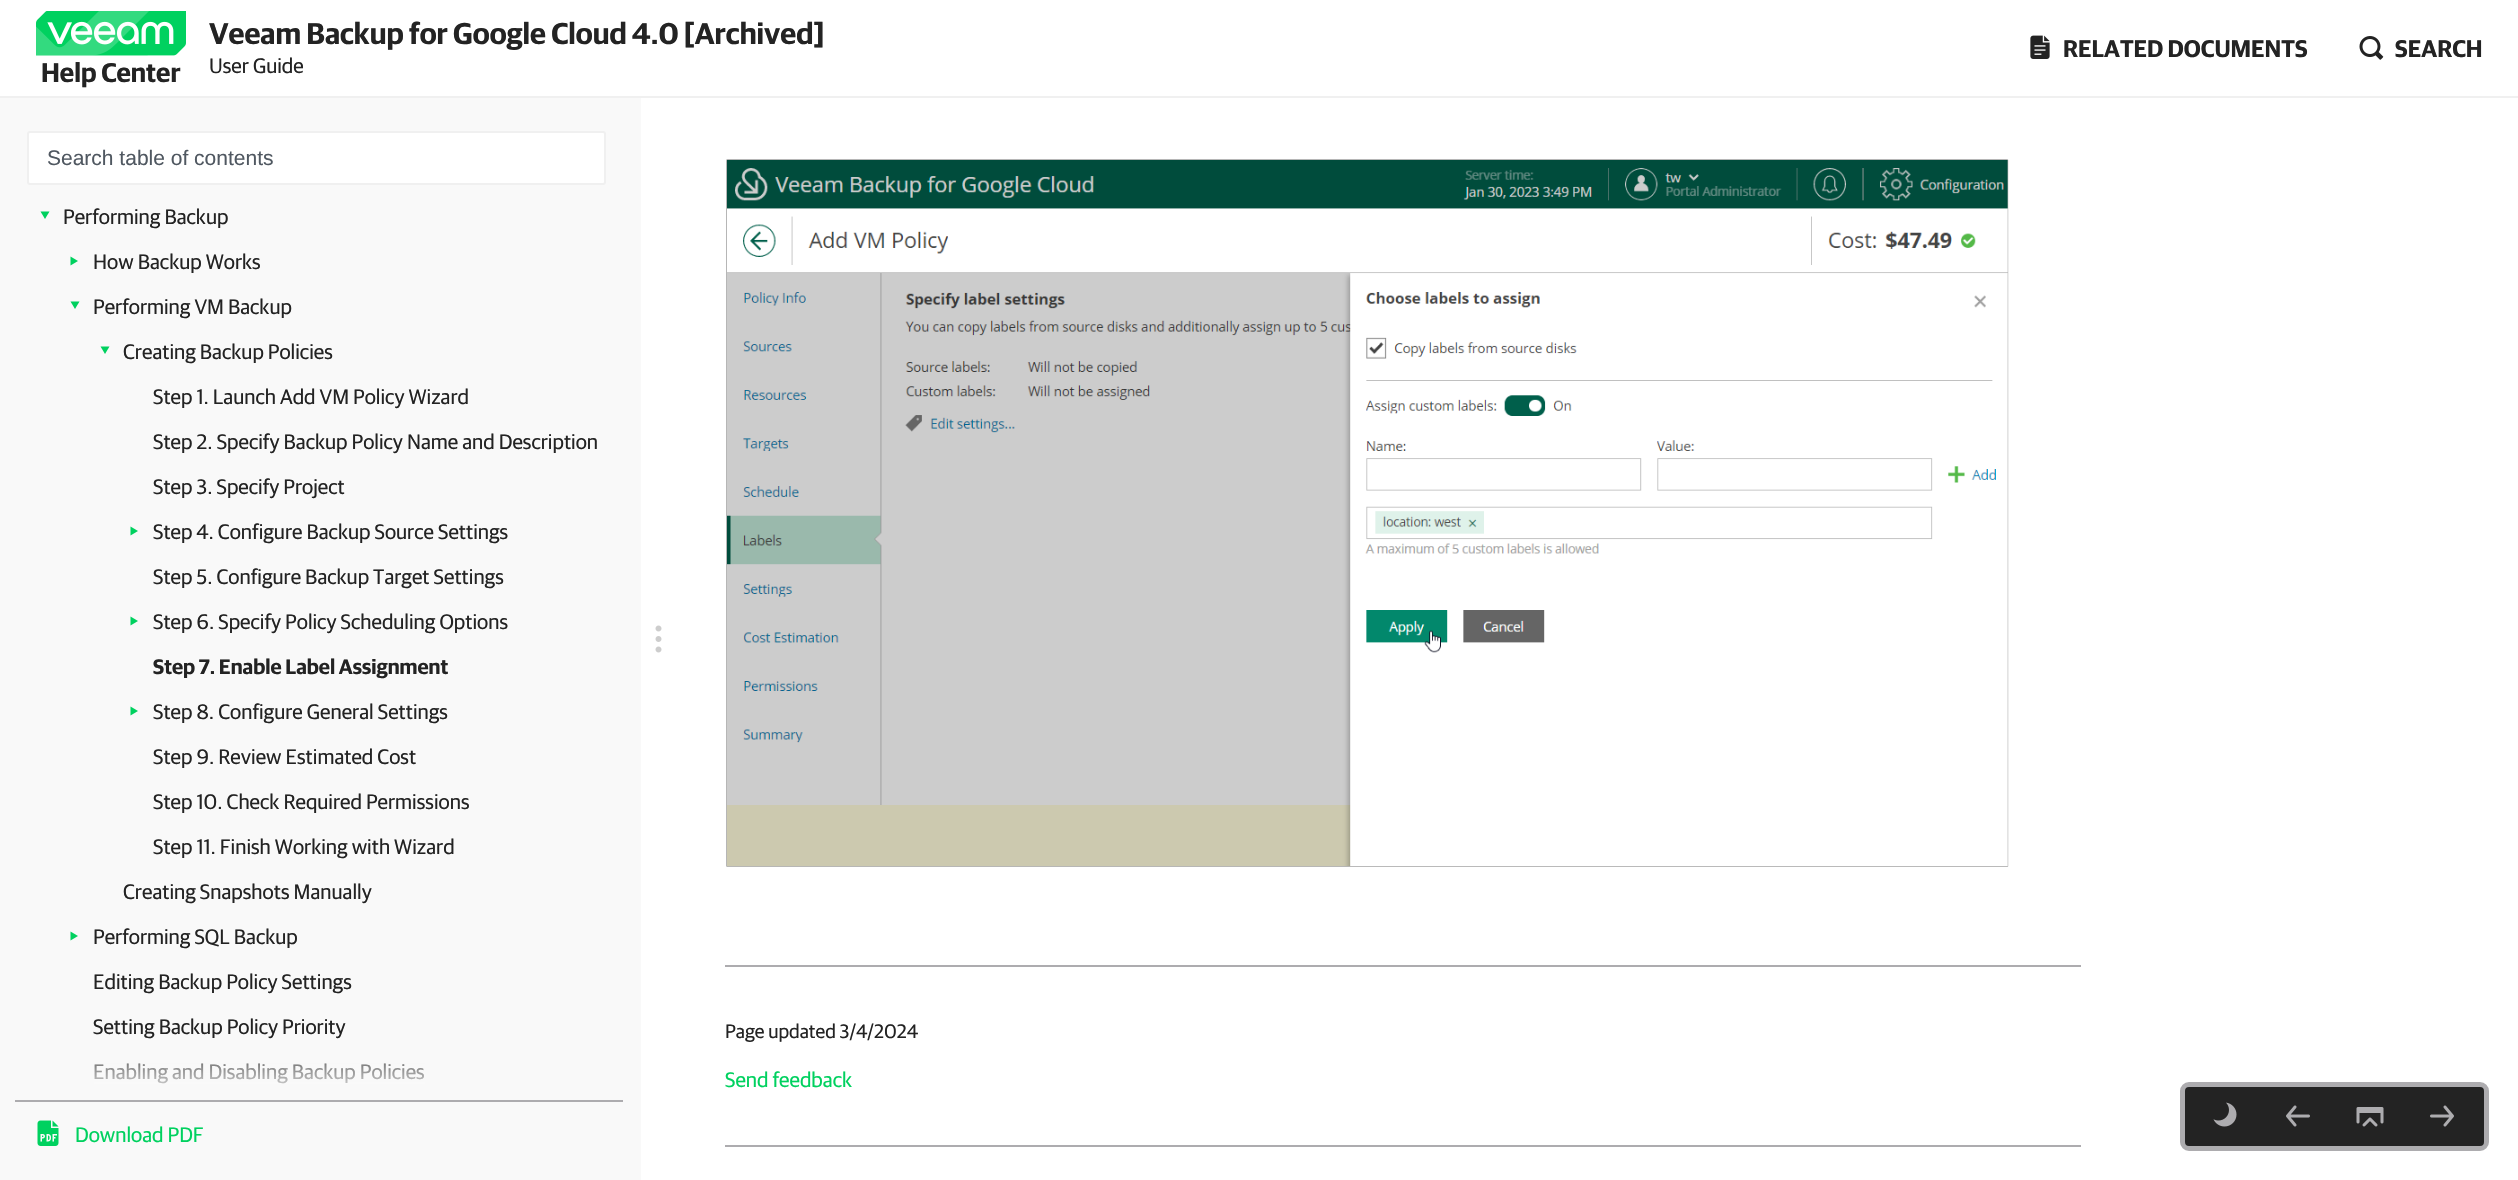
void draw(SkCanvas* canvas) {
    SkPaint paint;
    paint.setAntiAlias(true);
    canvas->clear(0xFFFFFFFF);
    paint.setColor(0xFFF0F0F0);
    canvas->drawRect(SkRect::MakeXYWH(0, 96, 2518, 2), paint);
    canvas->drawImageRect(SkImages::DeferredFromEncodedData(SkData::MakeFromFileName("img1.png")), SkRect::MakeXYWH(36, 11, 150, 45), SkSamplingOptions());
    SkFont font1(fontMgr->matchFamilyStyle("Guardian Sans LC", SkFontStyle(600, SkFontStyle::kNormal_Width, SkFontStyle::kUpright_Slant)), 27);
    font1.setSubpixel(true);
    paint.setColor(0xFF232323);
    canvas->drawString("Help Center", 41, 82, font1, paint);
    SkFont font2(fontMgr->matchFamilyStyle("Guardian Sans LC", SkFontStyle(600, SkFontStyle::kNormal_Width, SkFontStyle::kUpright_Slant)), 30);
    font2.setSubpixel(true);
    canvas->drawString("Veeam Backup for Google Cloud 4.0 [Archived]", 209, 44, font2, paint);
    SkFont font3(fontMgr->matchFamilyStyle("Guardian Sans LC", SkFontStyle::Normal()), 21);
    font3.setSubpixel(true);
    canvas->drawString("User Guide", 209, 73, font3, paint);
    canvas->drawImageRect(SkImages::DeferredFromEncodedData(SkData::MakeFromFileName("img2.png")), SkRect::MakeXYWH(2030, 35, 20, 24), SkSamplingOptions());
    SkFont font4(fontMgr->matchFamilyStyle("Guardian Sans LC", SkFontStyle(600, SkFontStyle::kNormal_Width, SkFontStyle::kUpright_Slant)), 24);
    font4.setSubpixel(true);
    canvas->drawString("RELATED DOCUMENTS", 2063, 57, font4, paint);
    canvas->drawImageRect(SkImages::DeferredFromEncodedData(SkData::MakeFromFileName("img3.png")), SkRect::MakeXYWH(2359, 36, 25, 24), SkSamplingOptions());
    canvas->drawString("SEARCH", 2395, 57, font4, paint);
    paint.setColor(0xFFF9F9F9);
    canvas->drawRect(SkRect::MakeXYWH(0, 98, 641, 1082), paint);
    paint.setColor(0xFFFFFFFF);
    canvas->drawRoundRect(SkRect::MakeXYWH(28, 132, 577, 52), 2, 2, paint);
    paint.setStyle(SkPaint::kStroke_Style);
    paint.setStrokeWidth(2);
    paint.setColor(0xFFF0F0F0);
    canvas->drawRoundRect(SkRect::MakeXYWH(28, 132, 577, 52), 2, 2, paint);
    SkFont font5(fontMgr->matchFamilyStyle("Liberation Sans", SkFontStyle::Normal()), 21);
    font5.setSubpixel(true);
    paint.setStyle(SkPaint::kFill_Style);
    paint.setColor(0xFF505861);
    canvas->drawString("Search table of contents", 47, 165, font5, paint);
    paint.setColor(0xFF00D15F);
    canvas->drawPath(SkPathBuilder().moveTo(40.5f, 211.5f).lineTo(49.5f, 211.5f).lineTo(45, 219).close().detach(), paint);
    paint.setColor(0xFF232323);
    canvas->drawString("Performing Backup", 63, 224, font3, paint);
    paint.setColor(0xFF00D15F);
    canvas->drawPath(SkPathBuilder().moveTo(70.5f, 265.5f).lineTo(70.5f, 256.5f).lineTo(78, 261).close().detach(), paint);
    paint.setColor(0xFF232323);
    canvas->drawString("How Backup Works", 93, 269, font3, paint);
    paint.setColor(0xFF00D15F);
    canvas->drawPath(SkPathBuilder().moveTo(70.5f, 301.5f).lineTo(79.5f, 301.5f).lineTo(75, 309).close().detach(), paint);
    paint.setColor(0xFF232323);
    canvas->drawString("Performing VM Backup", 93, 314, font3, paint);
    paint.setColor(0xFF00D15F);
    canvas->drawPath(SkPathBuilder().moveTo(100.5f, 346.5f).lineTo(109.5f, 346.5f).lineTo(105, 354).close().detach(), paint);
    paint.setColor(0xFF232323);
    canvas->drawString("Creating Backup Policies", 123, 359, font3, paint);
    canvas->drawString("Step 1. Launch Add VM Policy Wizard", 153, 404, font3, paint);
    canvas->drawString("Step 2. Specify Backup Policy Name and Description", 153, 449, font3, paint);
    canvas->drawString("Step 3. Specify Project", 153, 494, font3, paint);
    paint.setColor(0xFF00D15F);
    canvas->drawPath(SkPathBuilder().moveTo(130.5f, 535.5f).lineTo(130.5f, 526.5f).lineTo(138, 531).close().detach(), paint);
    paint.setColor(0xFF232323);
    canvas->drawString("Step 4. Configure Backup Source Settings", 153, 539, font3, paint);
    canvas->drawString("Step 5. Configure Backup Target Settings", 153, 584, font3, paint);
    paint.setColor(0xFF00D15F);
    canvas->drawPath(SkPathBuilder().moveTo(130.5f, 625.5f).lineTo(130.5f, 616.5f).lineTo(138, 621).close().detach(), paint);
    paint.setColor(0xFF232323);
    canvas->drawString("Step 6. Specify Policy Scheduling Options", 153, 629, font3, paint);
    SkFont font6(fontMgr->matchFamilyStyle("Guardian Sans LC", SkFontStyle(600, SkFontStyle::kNormal_Width, SkFontStyle::kUpright_Slant)), 21);
    font6.setSubpixel(true);
    canvas->drawString("Step 7. Enable Label Assignment", 153, 674, font6, paint);
    paint.setColor(0xFF00D15F);
    canvas->drawPath(SkPathBuilder().moveTo(130.5f, 715.5f).lineTo(130.5f, 706.5f).lineTo(138, 711).close().detach(), paint);
    paint.setColor(0xFF232323);
    canvas->drawString("Step 8. Configure General Settings", 153, 719, font3, paint);
    canvas->drawString("Step 9. Review Estimated Cost", 153, 764, font3, paint);
    canvas->drawString("Step 10. Check Required Permissions", 153, 809, font3, paint);
    canvas->drawString("Step 11. Finish Working with Wizard", 153, 854, font3, paint);
    canvas->drawString("Creating Snapshots Manually", 123, 899, font3, paint);
    paint.setColor(0xFF00D15F);
    canvas->drawPath(SkPathBuilder().moveTo(70.5f, 940.5f).lineTo(70.5f, 931.5f).lineTo(78, 936).close().detach(), paint);
    paint.setColor(0xFF232323);
    canvas->drawString("Performing SQL Backup", 93, 944, font3, paint);
    canvas->drawString("Editing Backup Policy Settings", 93, 989, font3, paint);
    canvas->drawString("Setting Backup Policy Priority", 93, 1034, font3, paint);
    canvas->drawString("Enabling and Disabling Backup Policies", 93, 1079, font3, paint);
    {
        const SkColor colors[] = {0x0DF9F9F9, 0xFFF9F9F9};
        const float stops[] = {0, 1};
        const SkPoint ends[] = {{311, 1040}, {311, 1100}};
        paint.setShader(SkGradientShader::MakeLinear(ends, colors, stops, 2, SkTileMode::kClamp));
        paint.setAlpha(255);
    }
    canvas->drawRect(SkRect::MakeXYWH(94, 1063, 331, 21), paint);
    paint.setShader(nullptr);
    paint.setColor(0xFFADACAF);
    canvas->drawRect(SkRect::MakeXYWH(15, 1100, 608, 2), paint);
    canvas->drawImageRect(SkImages::DeferredFromEncodedData(SkData::MakeFromFileName("img4.png")), SkRect::MakeXYWH(37, 1120, 22, 26), SkSamplingOptions());
    paint.setColor(0xFF00D15F);
    canvas->drawString("Download PDF", 75, 1142, font3, paint);
    canvas->drawImageRect(SkImages::DeferredFromEncodedData(SkData::MakeFromFileName("img5.png")), SkRect::MakeXYWH(655, 625, 7, 28), SkSamplingOptions());
    canvas->drawImageRect(SkImages::DeferredFromEncodedData(SkData::MakeFromFileName("img6.png")), SkRect::MakeXYWH(726, 159, 1283, 708), SkSamplingOptions());
    paint.setColor(0xFFADACAF);
    canvas->drawRect(SkRect::MakeXYWH(725, 965, 1356, 2), paint);
    SkFont font7(fontMgr->matchFamilyStyle("Guardian Sans LC", SkFontStyle::Normal()), 19.5f);
    font7.setSubpixel(true);
    paint.setColor(0xFF232323);
    canvas->drawString("Page updated 3/4/2024", 725, 1038, font7, paint);
    paint.setColor(0xFF00D15F);
    canvas->drawString("Send feedback", 725, 1087, font3, paint);
    paint.setColor(0xFFADACAF);
    canvas->drawRect(SkRect::MakeXYWH(725, 1145, 1356, 2), paint);
    paint.setColor(0xFF232323);
    canvas->drawRoundRect(SkRect::MakeXYWH(2182.5f, 1084.5f, 304, 64), 6.5f, 6.5f, paint);
    paint.setStyle(SkPaint::kStroke_Style);
    paint.setStrokeWidth(5);
    paint.setColor(0xFFADACAF);
    canvas->drawRoundRect(SkRect::MakeXYWH(2182.5f, 1084.5f, 304, 64), 6.5f, 6.5f, paint);
    canvas->drawImageRect(SkImages::DeferredFromEncodedData(SkData::MakeFromFileName("img7.png")), SkRect::MakeXYWH(2213, 1102, 24, 25), SkSamplingOptions());
    canvas->drawImageRect(SkImages::DeferredFromEncodedData(SkData::MakeFromFileName("img8.png")), SkRect::MakeXYWH(2286, 1105, 24, 22), SkSamplingOptions());
    canvas->drawImageRect(SkImages::DeferredFromEncodedData(SkData::MakeFromFileName("img9.png")), SkRect::MakeXYWH(2356, 1107, 28, 20), SkSamplingOptions());
    canvas->drawImageRect(SkImages::DeferredFromEncodedData(SkData::MakeFromFileName("img10.png")), SkRect::MakeXYWH(2430, 1105, 24, 22), SkSamplingOptions());
}
